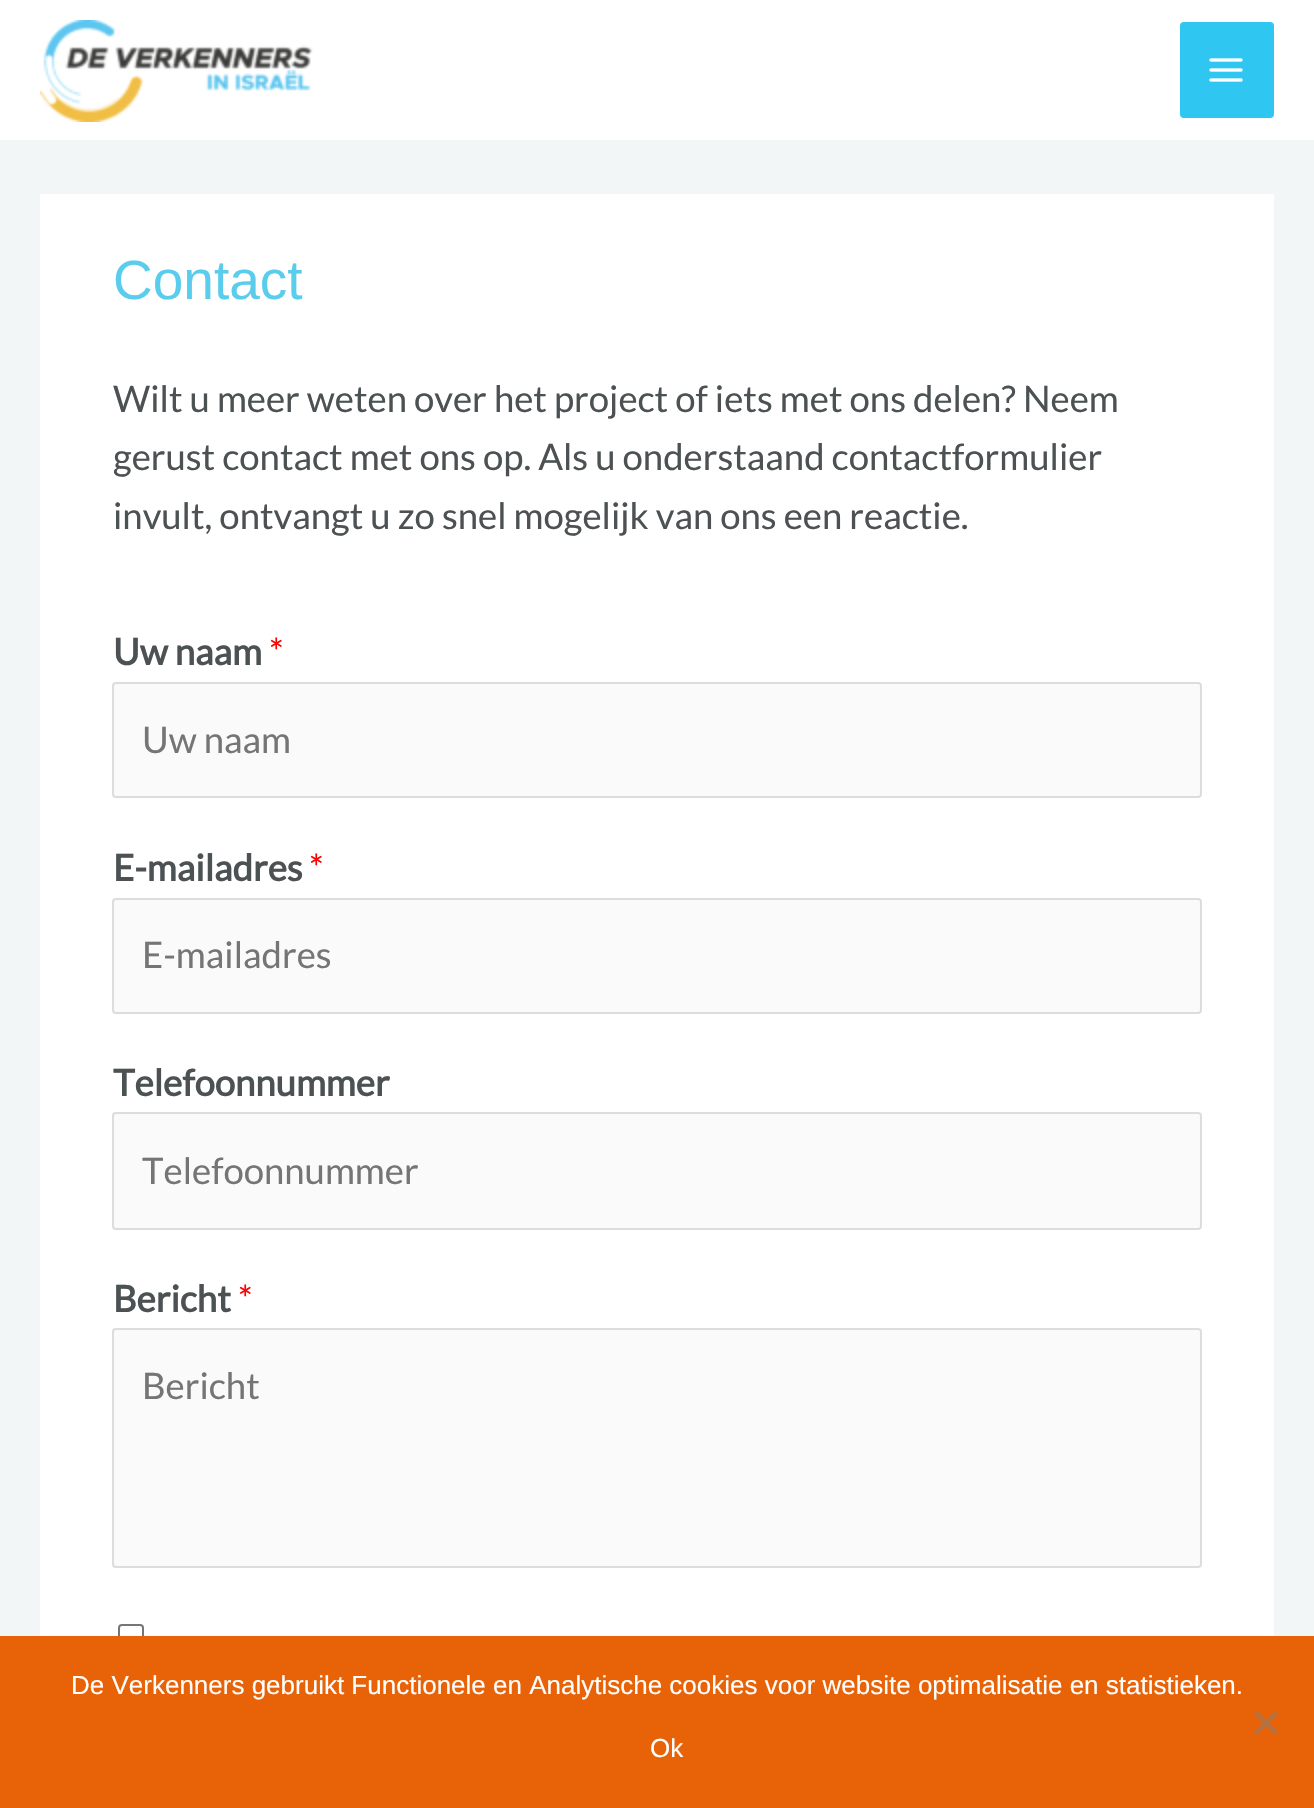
void draw(SkCanvas* canvas) {
    SkPaint paint;
    paint.setAntiAlias(true);
    canvas->clear(0xFFF3F6F6);
    paint.setColor(0xFFFFFFFF);
    canvas->drawRect(SkRect::MakeXYWH(0, 0, 1314, 140), paint);
    canvas->drawImageRect(SkImages::DeferredFromEncodedData(SkData::MakeFromFileName("img1.png")), SkRect::MakeXYWH(40, 20, 273, 102), SkSamplingOptions());
    paint.setColor(0xFF2FC6F1);
    canvas->drawRoundRect(SkRect::MakeXYWH(1180, 22, 94, 96), 4, 4, paint);
    canvas->drawImageRect(SkImages::DeferredFromEncodedData(SkData::MakeFromFileName("img2.png")), SkRect::MakeXYWH(1209, 58, 34, 24), SkSamplingOptions());
    paint.setColor(0xFFFFFFFF);
    canvas->drawRect(SkRect::MakeXYWH(40, 194, 1234, 1442), paint);
    SkFont font1(fontMgr->matchFamilyStyle("Liberation Sans", SkFontStyle::Normal()), 55);
    font1.setSubpixel(true);
    paint.setColor(0xFF5BCDEC);
    canvas->drawString("Contact", 113, 299, font1, paint);
    SkFont font2(fontMgr->matchFamilyStyle("Lato", SkFontStyle::Normal()), 36.5f);
    font2.setSubpixel(true);
    paint.setColor(0xFF4C5253);
    canvas->drawString("Wilt u meer weten over het project of iets met ons delen? Neem", 113, 412, font2, paint);
    canvas->drawString("gerust contact met ons op. Als u onderstaand contactformulier", 113, 470, font2, paint);
    canvas->drawString("invult, ontvangt u zo snel mogelijk van ons een reactie.", 113, 529, font2, paint);
    SkFont font3(fontMgr->matchFamilyStyle("Lato", SkFontStyle::Bold()), 36.5f);
    font3.setSubpixel(true);
    canvas->drawString("Uw naam", 113, 665, font3, paint);
    paint.setColor(0xFFFF0000);
    canvas->drawString("*", 269, 665, font2, paint);
    paint.setColor(0xFFFAFAFA);
    canvas->drawRoundRect(SkRect::MakeXYWH(113, 683, 1088, 114), 3, 3, paint);
    paint.setStyle(SkPaint::kStroke_Style);
    paint.setStrokeWidth(2);
    paint.setColor(0xFFDDDDDD);
    canvas->drawRoundRect(SkRect::MakeXYWH(113, 683, 1088, 114), 3, 3, paint);
    paint.setStyle(SkPaint::kFill_Style);
    paint.setColor(0xFF757575);
    canvas->drawString("Uw naam", 142, 753, font2, paint);
    paint.setColor(0xFF4C5253);
    canvas->drawString("E-mailadres", 113, 881, font3, paint);
    paint.setColor(0xFFFF0000);
    canvas->drawString("*", 309, 881, font2, paint);
    paint.setColor(0xFFFAFAFA);
    canvas->drawRoundRect(SkRect::MakeXYWH(113, 899, 1088, 114), 3, 3, paint);
    paint.setStyle(SkPaint::kStroke_Style);
    paint.setColor(0xFFDDDDDD);
    canvas->drawRoundRect(SkRect::MakeXYWH(113, 899, 1088, 114), 3, 3, paint);
    paint.setStyle(SkPaint::kFill_Style);
    paint.setColor(0xFF757575);
    canvas->drawString("E-mailadres", 142, 968, font2, paint);
    paint.setColor(0xFF4C5253);
    canvas->drawString("Telefoonnummer", 113, 1096, font3, paint);
    paint.setColor(0xFFFAFAFA);
    canvas->drawRoundRect(SkRect::MakeXYWH(113, 1113, 1088, 116), 3, 3, paint);
    paint.setStyle(SkPaint::kStroke_Style);
    paint.setColor(0xFFDDDDDD);
    canvas->drawRoundRect(SkRect::MakeXYWH(113, 1113, 1088, 116), 3, 3, paint);
    paint.setStyle(SkPaint::kFill_Style);
    paint.setColor(0xFF757575);
    canvas->drawString("Telefoonnummer", 142, 1184, font2, paint);
    paint.setColor(0xFF4C5253);
    canvas->drawString("Bericht", 113, 1312, font3, paint);
    paint.setColor(0xFFFF0000);
    canvas->drawString("*", 238, 1312, font2, paint);
    paint.setColor(0xFFFAFAFA);
    canvas->drawRoundRect(SkRect::MakeXYWH(113, 1329, 1088, 238), 3, 3, paint);
    paint.setStyle(SkPaint::kStroke_Style);
    paint.setColor(0xFFDDDDDD);
    canvas->drawRoundRect(SkRect::MakeXYWH(113, 1329, 1088, 238), 3, 3, paint);
    paint.setStyle(SkPaint::kFill_Style);
    paint.setColor(0xFF757575);
    canvas->drawString("Bericht", 142, 1399, font2, paint);
    paint.setStyle(SkPaint::kStroke_Style);
    paint.setColor(0xFF767676);
    canvas->drawRoundRect(SkRect::MakeXYWH(119, 1625, 24, 24), 3, 3, paint);
    paint.setStyle(SkPaint::kFill_Style);
    paint.setColor(0xFFE86307);
    canvas->drawRect(SkRect::MakeXYWH(0, 1636, 1314, 172), paint);
    SkFont font4(fontMgr->matchFamilyStyle("Liberation Sans", SkFontStyle::Normal()), 26);
    font4.setSubpixel(true);
    paint.setColor(0xFFFFFFFF);
    canvas->drawString("De Verkenners gebruikt Functionele en Analytische cookies voor website optimalisatie en statistieken.", 71, 1694, font4, paint);
    paint.setColor(0xFFB47244);
    canvas->drawPath(SkPathBuilder().moveTo(1275, 1711).lineTo(1278, 1714).lineTo(1257, 1735).lineTo(1254, 1732).close().detach(), paint);
    canvas->drawPath(SkPathBuilder().moveTo(1254, 1714).lineTo(1257, 1711).lineTo(1278, 1732).lineTo(1275, 1735).close().detach(), paint);
    paint.setColor(0xFFFFFFFF);
    canvas->drawString("Ok", 650, 1757, font4, paint);
}
